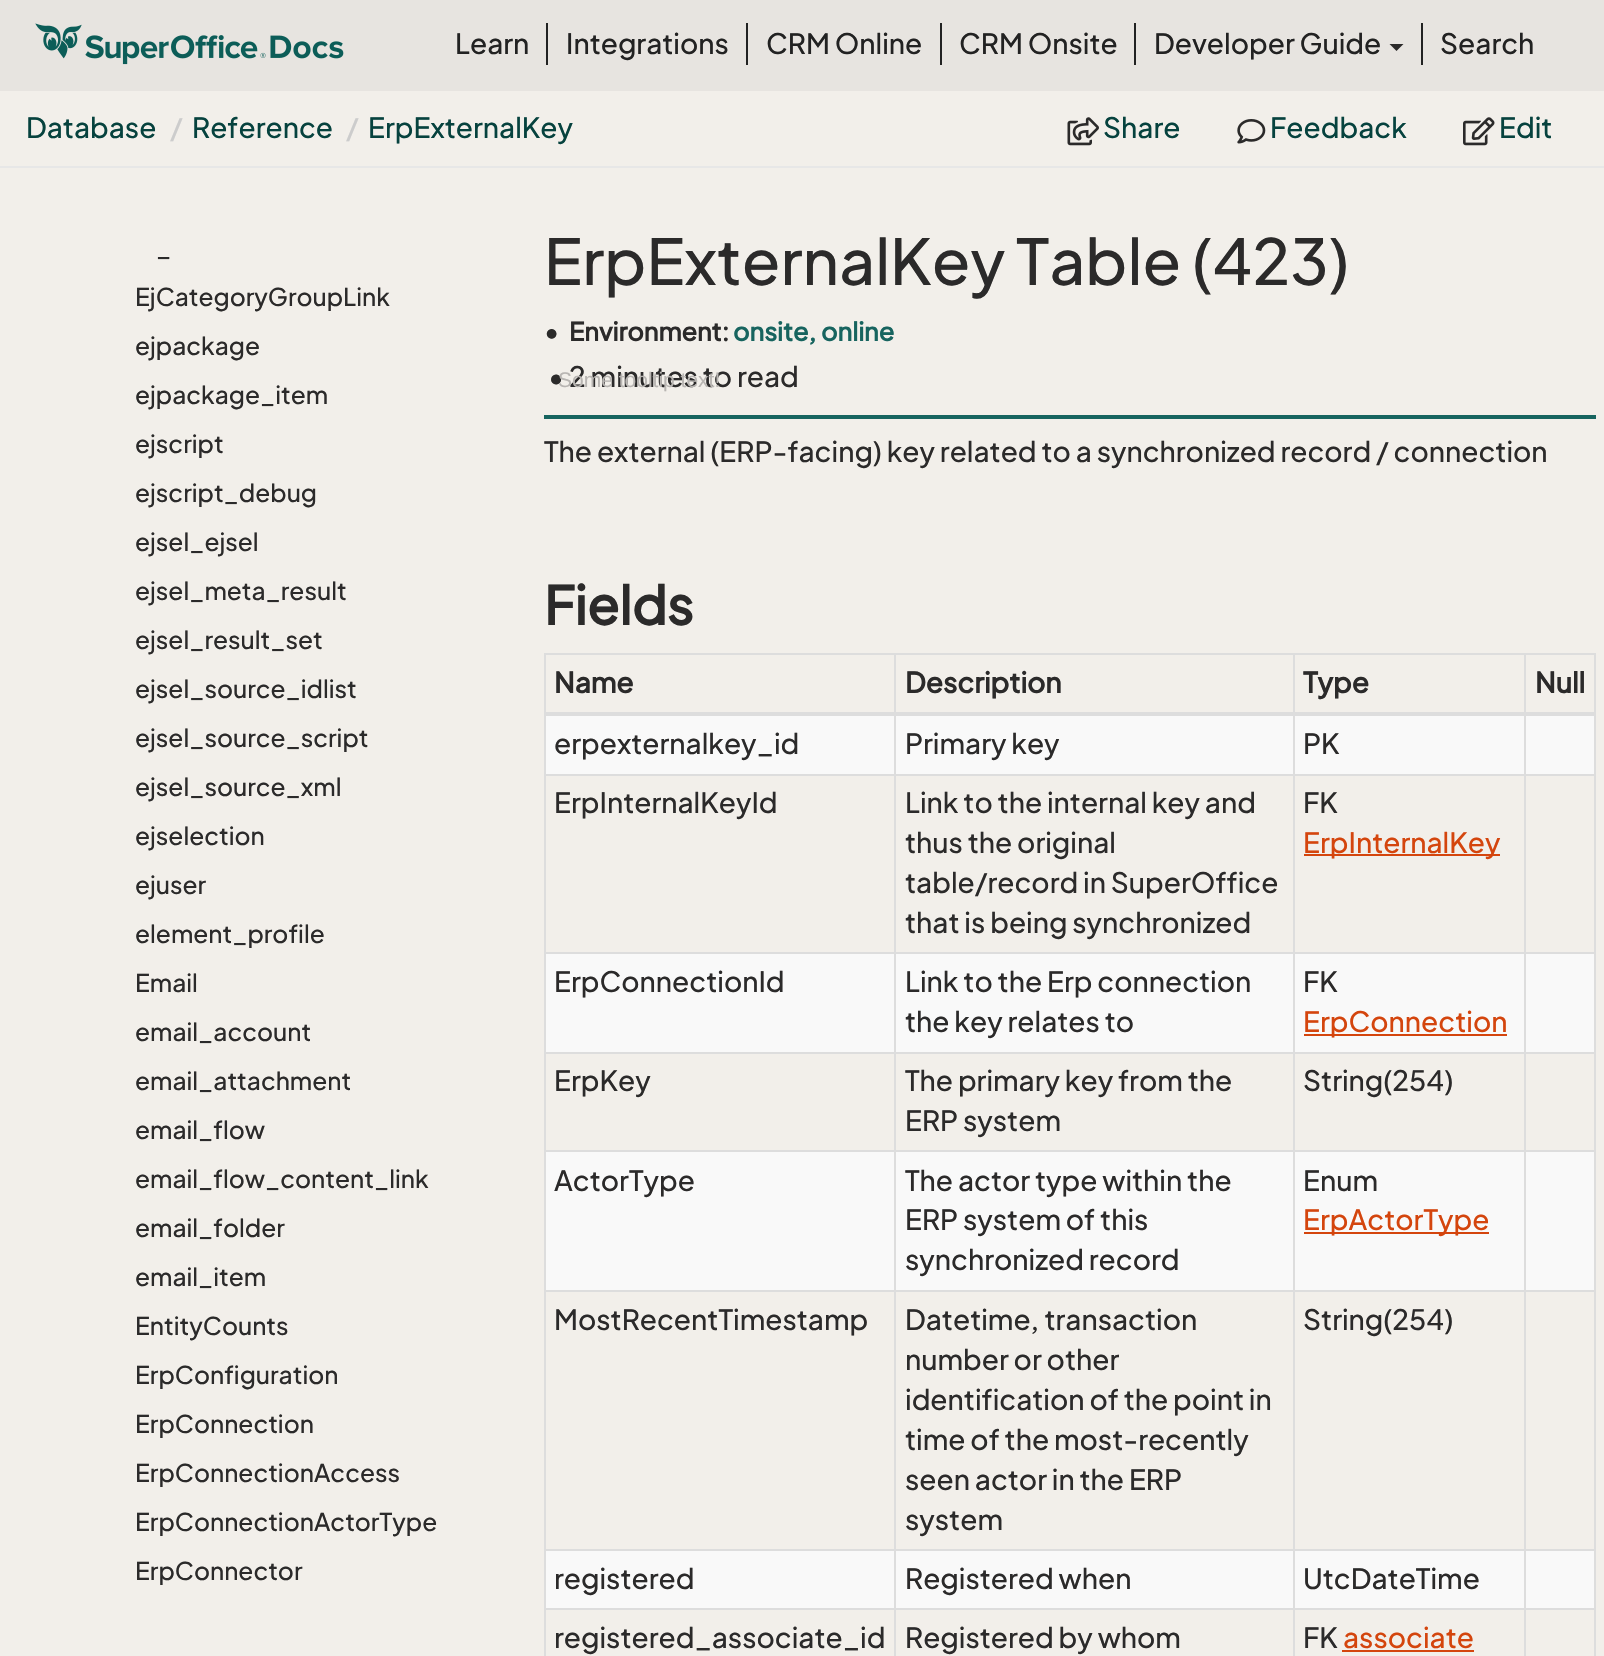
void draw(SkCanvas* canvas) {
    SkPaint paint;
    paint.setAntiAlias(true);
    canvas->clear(0xFFF2EFEA);
    paint.setColor(0xFFE7E4E0);
    canvas->drawRect(SkRect::MakeXYWH(0, 0, 1604, 91), paint);
    canvas->drawImageRect(SkImages::DeferredFromEncodedData(SkData::MakeFromFileName("img1.png")), SkRect::MakeXYWH(35, 23, 309, 42), SkSamplingOptions());
    paint.setColor(0xFF222222);
    canvas->drawRect(SkRect::MakeXYWH(546, 23, 2, 42), paint);
    SkFont font1(fontMgr->matchFamilyStyle("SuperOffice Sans", SkFontStyle::Normal()), 28);
    font1.setSubpixel(true);
    canvas->drawString("Learn", 455, 54, font1, paint);
    canvas->drawRect(SkRect::MakeXYWH(746, 23, 2, 42), paint);
    canvas->drawString("Integrations", 566, 54, font1, paint);
    canvas->drawRect(SkRect::MakeXYWH(940, 23, 2, 42), paint);
    canvas->drawString("CRM Online", 766, 54, font1, paint);
    canvas->drawRect(SkRect::MakeXYWH(1134, 23, 2, 42), paint);
    canvas->drawString("CRM Onsite", 959, 54, font1, paint);
    canvas->drawRect(SkRect::MakeXYWH(1421, 23, 2, 42), paint);
    canvas->drawString("Developer Guide", 1154, 54, font1, paint);
    paint.setColor(0xFF2B2A2A);
    canvas->drawPath(SkPathBuilder().moveTo(1389.5f, 44).lineTo(1403.5f, 44).lineTo(1396.5f, 51).close().detach(), paint);
    paint.setColor(0xFF222222);
    canvas->drawString("Search", 1440, 54, font1, paint);
    paint.setColor(0xFFE7E7E7);
    canvas->drawRect(SkRect::MakeXYWH(0, 166, 1604, 2), paint);
    paint.setColor(0xFF06423E);
    canvas->drawString("Database", 26, 138, font1, paint);
    paint.setColor(0xFFCCCCCC);
    canvas->drawString("/", 170, 138, font1, paint);
    paint.setColor(0xFF06423E);
    canvas->drawString("Reference", 192, 138, font1, paint);
    paint.setColor(0xFFCCCCCC);
    canvas->drawString("/", 346, 138, font1, paint);
    paint.setColor(0xFF06423E);
    canvas->drawString("ErpExternalKey", 368, 138, font1, paint);
    canvas->drawImageRect(SkImages::DeferredFromEncodedData(SkData::MakeFromFileName("img2.png")), SkRect::MakeXYWH(1067, 117, 32, 29), SkSamplingOptions());
    canvas->drawString("Share", 1103, 138, font1, paint);
    canvas->drawImageRect(SkImages::DeferredFromEncodedData(SkData::MakeFromFileName("img3.png")), SkRect::MakeXYWH(1237, 119, 29, 25), SkSamplingOptions());
    canvas->drawString("Feedback", 1270, 138, font1, paint);
    canvas->drawImageRect(SkImages::DeferredFromEncodedData(SkData::MakeFromFileName("img4.png")), SkRect::MakeXYWH(1463, 117, 32, 29), SkSamplingOptions());
    canvas->drawString("Edit", 1499, 138, font1, paint);
    SkFont font2(fontMgr->matchFamilyStyle("SuperOffice Sans", SkFontStyle::Normal()), 24.5f);
    font2.setSubpixel(true);
    paint.setColor(0xFF2B2A2A);
    canvas->drawString("_", 156, 257, font2, paint);
    canvas->drawString("EjCategoryGroupLink", 135, 306, font2, paint);
    canvas->drawString("ejpackage", 135, 355, font2, paint);
    canvas->drawString("ejpackage_item", 135, 404, font2, paint);
    canvas->drawString("ejscript", 135, 453, font2, paint);
    canvas->drawString("ejscript_debug", 135, 502, font2, paint);
    canvas->drawString("ejsel_ejsel", 135, 551, font2, paint);
    canvas->drawString("ejsel_meta_result", 135, 600, font2, paint);
    canvas->drawString("ejsel_result_set", 135, 649, font2, paint);
    canvas->drawString("ejsel_source_idlist", 135, 698, font2, paint);
    canvas->drawString("ejsel_source_script", 135, 747, font2, paint);
    canvas->drawString("ejsel_source_xml", 135, 796, font2, paint);
    canvas->drawString("ejselection", 135, 845, font2, paint);
    canvas->drawString("ejuser", 135, 894, font2, paint);
    canvas->drawString("element_profile", 135, 943, font2, paint);
    canvas->drawString("Email", 135, 992, font2, paint);
    canvas->drawString("email_account", 135, 1041, font2, paint);
    canvas->drawString("email_attachment", 135, 1090, font2, paint);
    canvas->drawString("email_flow", 135, 1139, font2, paint);
    canvas->drawString("email_flow_content_link", 135, 1188, font2, paint);
    canvas->drawString("email_folder", 135, 1237, font2, paint);
    canvas->drawString("email_item", 135, 1286, font2, paint);
    canvas->drawString("EntityCounts", 135, 1335, font2, paint);
    canvas->drawString("ErpConfiguration", 135, 1384, font2, paint);
    canvas->drawString("ErpConnection", 135, 1433, font2, paint);
    canvas->drawString("ErpConnectionAccess", 135, 1482, font2, paint);
    canvas->drawString("ErpConnectionActorType", 135, 1531, font2, paint);
    canvas->drawString("ErpConnector", 135, 1580, font2, paint);
    SkFont font3(fontMgr->matchFamilyStyle("SuperOffice Sans", SkFontStyle::Normal()), 63);
    font3.setSubpixel(true);
    canvas->drawString("ErpExternalKey Table (423)", 544, 285, font3, paint);
    SkFont font4(fontMgr->matchFamilyStyle("SuperOffice Sans", SkFontStyle::Bold()), 25.25f);
    font4.setSubpixel(true);
    canvas->drawString("•", 544, 341, font4, paint);
    canvas->drawString("Environment:", 569, 341, font4, paint);
    paint.setColor(0xFF17645F);
    canvas->drawString("onsite, online", 733, 341, font4, paint);
    canvas->drawRect(SkRect::MakeXYWH(544, 415, 1052, 4), paint);
    paint.setColor(0xFF2B2A2A);
    canvas->drawString("• 2 minutes to read", 548, 387, font1, paint);
    SkFont font5(fontMgr->matchFamilyStyle("Liberation Sans", SkFontStyle::Normal()), 21);
    font5.setSubpixel(true);
    paint.setColor(0xFFB8B5B2);
    canvas->drawString("Some tooltip text!", 558, 387, font5, paint);
    paint.setColor(0xFF2B2A2A);
    canvas->drawString("The external (ERP-facing) key related to a synchronized record / connection", 544, 462, font1, paint);
    SkFont font6(fontMgr->matchFamilyStyle("SuperOffice Sans", SkFontStyle::Bold()), 52.5f);
    font6.setSubpixel(true);
    canvas->drawString("Fields", 544, 625, font6, paint);
    paint.setColor(0xFFDDDDDD);
    canvas->drawRect(SkRect::MakeXYWH(544, 653, 1052, 2), paint);
    canvas->drawRect(SkRect::MakeXYWH(1594, 653, 2, 1003), paint);
    canvas->drawRect(SkRect::MakeXYWH(544, 653, 2, 1003), paint);
    SkFont font7(fontMgr->matchFamilyStyle("SuperOffice Sans", SkFontStyle::Bold()), 28);
    font7.setSubpixel(true);
    paint.setColor(0xFF2B2A2A);
    canvas->drawString("Name", 554, 693, font7, paint);
    canvas->drawString("Description", 905, 693, font7, paint);
    canvas->drawString("Type", 1303, 693, font7, paint);
    paint.setColor(0xFFF9F9F9);
    canvas->drawRect(SkRect::MakeXYWH(546, 716, 1048, 58), paint);
    paint.setColor(0xFFDDDDDD);
    canvas->drawRect(SkRect::MakeXYWH(1524, 774, 72, 2), paint);
    canvas->drawRect(SkRect::MakeXYWH(1524, 952, 72, 2), paint);
    paint.setColor(0xFFF9F9F9);
    canvas->drawRect(SkRect::MakeXYWH(546, 954, 1048, 98), paint);
    paint.setColor(0xFFDDDDDD);
    canvas->drawRect(SkRect::MakeXYWH(1524, 1052, 72, 2), paint);
    canvas->drawRect(SkRect::MakeXYWH(1524, 1150, 72, 2), paint);
    paint.setColor(0xFFF9F9F9);
    canvas->drawRect(SkRect::MakeXYWH(546, 1152, 1048, 138), paint);
    paint.setColor(0xFFDDDDDD);
    canvas->drawRect(SkRect::MakeXYWH(1524, 1290, 72, 2), paint);
    canvas->drawRect(SkRect::MakeXYWH(1524, 1549, 72, 2), paint);
    paint.setColor(0xFFF9F9F9);
    canvas->drawRect(SkRect::MakeXYWH(546, 1551, 1048, 57), paint);
    paint.setColor(0xFFDDDDDD);
    canvas->drawRect(SkRect::MakeXYWH(1524, 1608, 72, 2), paint);
    canvas->drawRect(SkRect::MakeXYWH(1524, 1608, 2, 48), paint);
    canvas->drawRect(SkRect::MakeXYWH(1293, 1608, 233, 2), paint);
    canvas->drawRect(SkRect::MakeXYWH(1524, 1549, 2, 61), paint);
    canvas->drawRect(SkRect::MakeXYWH(1293, 1549, 233, 2), paint);
    canvas->drawRect(SkRect::MakeXYWH(1524, 1290, 2, 261), paint);
    canvas->drawRect(SkRect::MakeXYWH(1293, 1290, 233, 2), paint);
    canvas->drawRect(SkRect::MakeXYWH(1524, 1150, 2, 142), paint);
    canvas->drawRect(SkRect::MakeXYWH(1293, 1150, 233, 2), paint);
    canvas->drawRect(SkRect::MakeXYWH(1524, 1052, 2, 100), paint);
    canvas->drawRect(SkRect::MakeXYWH(1293, 1052, 233, 2), paint);
    canvas->drawRect(SkRect::MakeXYWH(1524, 952, 2, 102), paint);
    canvas->drawRect(SkRect::MakeXYWH(1293, 952, 233, 2), paint);
    canvas->drawRect(SkRect::MakeXYWH(1524, 774, 2, 180), paint);
    canvas->drawRect(SkRect::MakeXYWH(1293, 774, 233, 2), paint);
    canvas->drawRect(SkRect::MakeXYWH(1293, 1608, 2, 48), paint);
    canvas->drawRect(SkRect::MakeXYWH(894, 1608, 401, 2), paint);
    canvas->drawRect(SkRect::MakeXYWH(1293, 1549, 2, 61), paint);
    canvas->drawRect(SkRect::MakeXYWH(894, 1549, 401, 2), paint);
    canvas->drawRect(SkRect::MakeXYWH(1293, 1290, 2, 261), paint);
    canvas->drawRect(SkRect::MakeXYWH(894, 1290, 401, 2), paint);
    canvas->drawRect(SkRect::MakeXYWH(1293, 1150, 2, 142), paint);
    canvas->drawRect(SkRect::MakeXYWH(894, 1150, 401, 2), paint);
    canvas->drawRect(SkRect::MakeXYWH(1293, 1052, 2, 100), paint);
    canvas->drawRect(SkRect::MakeXYWH(894, 1052, 401, 2), paint);
    canvas->drawRect(SkRect::MakeXYWH(1293, 952, 2, 102), paint);
    canvas->drawRect(SkRect::MakeXYWH(894, 952, 401, 2), paint);
    canvas->drawRect(SkRect::MakeXYWH(1293, 774, 2, 180), paint);
    canvas->drawRect(SkRect::MakeXYWH(894, 774, 401, 2), paint);
    canvas->drawRect(SkRect::MakeXYWH(894, 1608, 2, 48), paint);
    canvas->drawRect(SkRect::MakeXYWH(544, 1608, 352, 2), paint);
    canvas->drawRect(SkRect::MakeXYWH(894, 1549, 2, 61), paint);
    canvas->drawRect(SkRect::MakeXYWH(544, 1549, 352, 2), paint);
    canvas->drawRect(SkRect::MakeXYWH(894, 1290, 2, 261), paint);
    canvas->drawRect(SkRect::MakeXYWH(544, 1290, 352, 2), paint);
    canvas->drawRect(SkRect::MakeXYWH(894, 1150, 2, 142), paint);
    canvas->drawRect(SkRect::MakeXYWH(544, 1150, 352, 2), paint);
    canvas->drawRect(SkRect::MakeXYWH(894, 1052, 2, 100), paint);
    canvas->drawRect(SkRect::MakeXYWH(544, 1052, 352, 2), paint);
    canvas->drawRect(SkRect::MakeXYWH(894, 952, 2, 102), paint);
    canvas->drawRect(SkRect::MakeXYWH(544, 952, 352, 2), paint);
    canvas->drawRect(SkRect::MakeXYWH(894, 774, 2, 180), paint);
    canvas->drawRect(SkRect::MakeXYWH(544, 774, 352, 2), paint);
    canvas->drawRect(SkRect::MakeXYWH(894, 653, 2, 122), paint);
    canvas->drawRect(SkRect::MakeXYWH(1293, 653, 2, 122), paint);
    canvas->drawRect(SkRect::MakeXYWH(1524, 653, 2, 122), paint);
    canvas->drawRect(SkRect::MakeXYWH(544, 712, 1052, 4), paint);
    paint.setColor(0xFF2B2A2A);
    canvas->drawString("Null", 1535, 693, font7, paint);
    canvas->drawString("erpexternalkey_id", 554, 754, font1, paint);
    canvas->drawString("Primary key", 905, 754, font1, paint);
    canvas->drawString("PK", 1303, 754, font1, paint);
    canvas->drawString("ErpInternalKeyId", 554, 813, font1, paint);
    canvas->drawString("Link to the internal key and", 905, 813, font1, paint);
    canvas->drawString("thus the original", 905, 853, font1, paint);
    canvas->drawString("table/record in SuperOffice", 905, 893, font1, paint);
    canvas->drawString("that is being synchronized", 905, 933, font1, paint);
    canvas->drawString("FK", 1303, 813, font1, paint);
    paint.setColor(0xFFD4450D);
    canvas->drawRect(SkRect::MakeXYWH(1304, 854, 196, 2), paint);
    canvas->drawString("ErpInternalKey", 1303, 853, font1, paint);
    paint.setColor(0xFF2B2A2A);
    canvas->drawString("ErpConnectionId", 554, 992, font1, paint);
    canvas->drawString("Link to the Erp connection", 905, 992, font1, paint);
    canvas->drawString("the key relates to", 905, 1032, font1, paint);
    canvas->drawString("FK", 1303, 992, font1, paint);
    paint.setColor(0xFFD4450D);
    canvas->drawRect(SkRect::MakeXYWH(1304, 1034, 203, 2), paint);
    canvas->drawString("ErpConnection", 1303, 1032, font1, paint);
    paint.setColor(0xFF2B2A2A);
    canvas->drawString("ErpKey", 554, 1091, font1, paint);
    canvas->drawString("The primary key from the", 905, 1091, font1, paint);
    canvas->drawString("ERP system", 905, 1131, font1, paint);
    canvas->drawString("String(254)", 1303, 1091, font1, paint);
    canvas->drawString("ActorType", 554, 1191, font1, paint);
    canvas->drawString("The actor type within the", 905, 1191, font1, paint);
    canvas->drawString("ERP system of this", 905, 1230, font1, paint);
    canvas->drawString("synchronized record", 905, 1270, font1, paint);
    canvas->drawString("Enum", 1303, 1191, font1, paint);
    paint.setColor(0xFFD4450D);
    canvas->drawRect(SkRect::MakeXYWH(1304, 1232, 185, 2), paint);
    canvas->drawString("ErpActorType", 1303, 1230, font1, paint);
    paint.setColor(0xFF2B2A2A);
    canvas->drawString("MostRecentTimestamp", 554, 1330, font1, paint);
    canvas->drawString("Datetime, transaction", 905, 1330, font1, paint);
    canvas->drawString("number or other", 905, 1370, font1, paint);
    canvas->drawString("identification of the point in", 905, 1410, font1, paint);
    canvas->drawString("time of the most-recently", 905, 1450, font1, paint);
    canvas->drawString("seen actor in the ERP", 905, 1490, font1, paint);
    canvas->drawString("system", 905, 1530, font1, paint);
    canvas->drawString("String(254)", 1303, 1330, font1, paint);
    canvas->drawString("registered", 554, 1589, font1, paint);
    canvas->drawString("Registered when", 905, 1589, font1, paint);
    canvas->drawString("UtcDateTime", 1303, 1589, font1, paint);
    canvas->drawString("registered_associate_id", 554, 1648, font1, paint);
    canvas->drawString("Registered by whom", 905, 1648, font1, paint);
    canvas->drawString("FK", 1303, 1648, font1, paint);
    paint.setColor(0xFFD4450D);
    canvas->drawString("associate", 1343, 1648, font1, paint);
    canvas->drawRect(SkRect::MakeXYWH(1342, 1650, 132, 2), paint);
}
